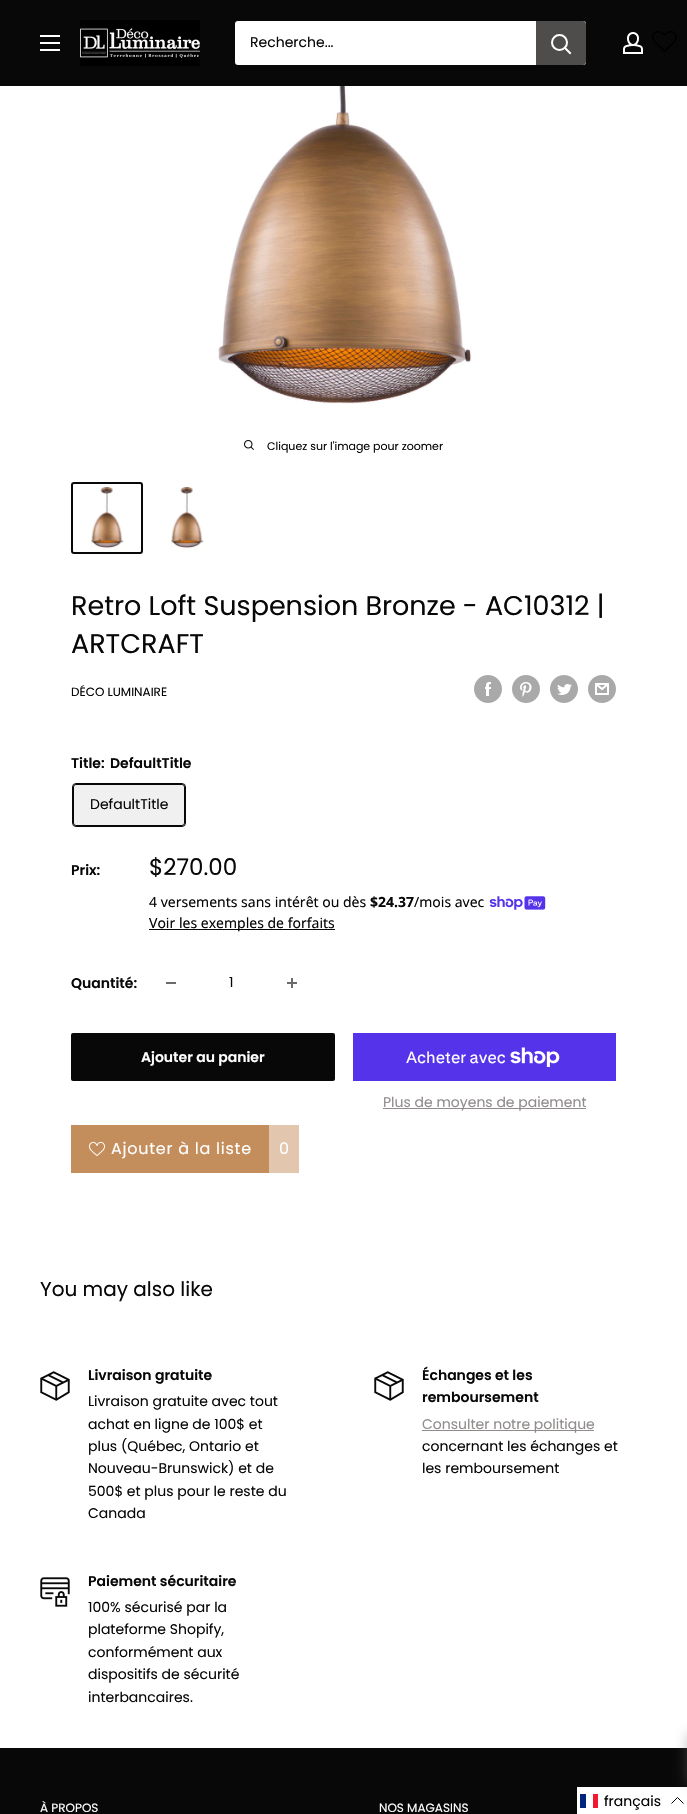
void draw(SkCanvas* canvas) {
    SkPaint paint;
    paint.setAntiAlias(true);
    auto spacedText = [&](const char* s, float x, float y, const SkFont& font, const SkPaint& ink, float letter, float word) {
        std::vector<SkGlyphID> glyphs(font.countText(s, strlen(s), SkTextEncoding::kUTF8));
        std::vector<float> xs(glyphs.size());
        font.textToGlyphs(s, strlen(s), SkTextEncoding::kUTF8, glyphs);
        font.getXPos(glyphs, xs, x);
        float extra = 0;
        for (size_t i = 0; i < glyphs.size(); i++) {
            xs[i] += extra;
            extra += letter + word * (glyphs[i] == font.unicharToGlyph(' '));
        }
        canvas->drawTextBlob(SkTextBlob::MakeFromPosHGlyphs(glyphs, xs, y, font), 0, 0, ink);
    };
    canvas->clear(0xFFFFFFFF);
    paint.setColor(0xFF080808);
    canvas->drawRect(SkRect::MakeXYWH(0, 0, 687, 86), paint);
    canvas->drawImageRect(SkImages::DeferredFromEncodedData(SkData::MakeFromFileName("img1.png")), SkRect::MakeXYWH(40, 35, 20, 16), SkSamplingOptions());
    canvas->drawImageRect(SkImages::DeferredFromEncodedData(SkData::MakeFromFileName("img2.png")), SkRect::MakeXYWH(80, 20, 120, 46), SkSamplingOptions());
    paint.setColor(0xFFFFFFFF);
    canvas->drawRoundRect(SkRect::MakeXYWH(235, 21, 351, 44), 3, 3, paint);
    SkFont font1(fontMgr->matchFamilyStyle("Poppins", SkFontStyle::Normal()), 14);
    font1.setSubpixel(true);
    paint.setColor(0xFF080808);
    canvas->drawString("Recherche...", 250, 47, font1, paint);
    paint.setColor(0xFF4E4D4C);
    canvas->drawPath(SkPathBuilder().moveTo(536, 21).lineTo(583, 21).cubicTo(584.5f, 21, 586, 22.5f, 586, 24).lineTo(586, 62).cubicTo(586, 63.5f, 584.5f, 65, 583, 65).lineTo(536, 65).close().detach(), paint);
    paint.setStyle(SkPaint::kStroke_Style);
    paint.setStrokeWidth(2);
    paint.setStrokeCap(SkPaint::kSquare_Cap);
    paint.setColor(0xFFFFFFFF);
    canvas->drawPath(SkPathBuilder().moveTo(570, 53).lineTo(565, 48).detach(), paint);
    paint.setStrokeCap(SkPaint::kButt_Cap);
    canvas->drawCircle(559.5f, 42.5f, 7.5f, paint);
    canvas->drawImageRect(SkImages::DeferredFromEncodedData(SkData::MakeFromFileName("img3.png")), SkRect::MakeXYWH(623, 32, 20, 22), SkSamplingOptions());
    canvas->drawImageRect(SkImages::DeferredFromEncodedData(SkData::MakeFromFileName("img4.png")), SkRect::MakeXYWH(652, 31, 25, 21), SkSamplingOptions());
    canvas->drawImageRect(SkImages::DeferredFromEncodedData(SkData::MakeFromFileName("img5.png")), SkRect::MakeXYWH(218, 86, 254, 318), SkSamplingOptions());
    canvas->drawImageRect(SkImages::DeferredFromEncodedData(SkData::MakeFromFileName("img6.png")), SkRect::MakeXYWH(244, 440, 10, 10), SkSamplingOptions());
    SkFont font2(fontMgr->matchFamilyStyle("Poppins", SkFontStyle::Normal()), 11);
    font2.setSubpixel(true);
    paint.setStyle(SkPaint::kFill_Style);
    paint.setColor(0xFF080808);
    canvas->drawString("Cliquez sur l'image pour zoomer", 267, 450, font2, paint);
    paint.setStyle(SkPaint::kStroke_Style);
    canvas->drawRoundRect(SkRect::MakeXYWH(72, 483, 70, 70), 2, 2, paint);
    canvas->drawImageRect(SkImages::DeferredFromEncodedData(SkData::MakeFromFileName("img7.png")), SkRect::MakeXYWH(90, 487, 34, 62), SkSamplingOptions());
    canvas->drawImageRect(SkImages::DeferredFromEncodedData(SkData::MakeFromFileName("img7.png")), SkRect::MakeXYWH(170, 487, 34, 62), SkSamplingOptions());
    SkFont font3(fontMgr->matchFamilyStyle("Poppins", SkFontStyle::Normal()), 27);
    font3.setSubpixel(true);
    paint.setStyle(SkPaint::kFill_Style);
    canvas->drawString("Retro Loft Suspension Bronze - AC10312 |", 71, 615, font3, paint);
    canvas->drawString("ARTCRAFT", 71, 653, font3, paint);
    SkFont font4(fontMgr->matchFamilyStyle("Poppins", SkFontStyle::Normal()), 12);
    font4.setSubpixel(true);
    canvas->drawString("DÉCO LUMINAIRE", 71, 696, font4, paint);
    canvas->drawImageRect(SkImages::DeferredFromEncodedData(SkData::MakeFromFileName("img8.png")), SkRect::MakeXYWH(474, 675, 28, 28), SkSamplingOptions());
    canvas->drawImageRect(SkImages::DeferredFromEncodedData(SkData::MakeFromFileName("img9.png")), SkRect::MakeXYWH(512, 675, 28, 28), SkSamplingOptions());
    canvas->drawImageRect(SkImages::DeferredFromEncodedData(SkData::MakeFromFileName("img10.png")), SkRect::MakeXYWH(550, 675, 28, 28), SkSamplingOptions());
    canvas->drawImageRect(SkImages::DeferredFromEncodedData(SkData::MakeFromFileName("img11.png")), SkRect::MakeXYWH(588, 675, 28, 28), SkSamplingOptions());
    SkFont font5(fontMgr->matchFamilyStyle("Poppins", SkFontStyle(600, SkFontStyle::kNormal_Width, SkFontStyle::kUpright_Slant)), 14);
    font5.setSubpixel(true);
    canvas->drawString("Title:", 71, 768, font5, paint);
    canvas->drawString("DefaultTitle", 110, 768, font5, paint);
    paint.setStyle(SkPaint::kStroke_Style);
    paint.setStrokeWidth(1);
    canvas->drawRoundRect(SkRect::MakeXYWH(72.5f, 783.5f, 113, 43), 3.5f, 3.5f, paint);
    paint.setStyle(SkPaint::kFill_Style);
    paint.setColor(0x0F080808);
    canvas->drawRect(SkRect::MakeXYWH(73, 784, 112, 42), paint);
    paint.setStyle(SkPaint::kStroke_Style);
    paint.setColor(0xFF080808);
    canvas->drawRoundRect(SkRect::MakeXYWH(73.5f, 784.5f, 111, 41), 2.5f, 2.5f, paint);
    paint.setStyle(SkPaint::kFill_Style);
    canvas->drawString("DefaultTitle", 90, 809, font1, paint);
    canvas->drawString("Prix:", 71, 875, font5, paint);
    SkFont font6(fontMgr->matchFamilyStyle("Poppins", SkFontStyle::Normal()), 23);
    font6.setSubpixel(true);
    canvas->drawString("$270.00", 149, 875, font6, paint);
    SkFont font7(fontMgr->matchFamilyStyle("Noto Sans", SkFontStyle::Normal()), 14);
    font7.setSubpixel(true);
    canvas->drawString("4 versements sans intérêt ou dès", 149, 907, font7, paint);
    SkFont font8(fontMgr->matchFamilyStyle("Noto Sans", SkFontStyle::Bold()), 14);
    font8.setSubpixel(true);
    canvas->drawString("$24.37", 370, 907, font8, paint);
    canvas->drawString("/mois avec", 414, 907, font7, paint);
    canvas->drawImageRect(SkImages::DeferredFromEncodedData(SkData::MakeFromFileName("img12.png")), SkRect::MakeXYWH(489, 896, 57, 14), SkSamplingOptions());
    canvas->drawRect(SkRect::MakeXYWH(149, 929, 186, 1), paint);
    canvas->drawString("Voir les exemples de forfaits", 149, 928, font7, paint);
    canvas->drawString("Quantité:", 71, 988, font5, paint);
    paint.setColor(0xFF6B6B6B);
    canvas->drawRect(SkRect::MakeXYWH(166, 982, 10, 2), paint);
    paint.setColor(0xFF080808);
    canvas->drawString("1", 229, 987, font1, paint);
    canvas->drawImageRect(SkImages::DeferredFromEncodedData(SkData::MakeFromFileName("img13.png")), SkRect::MakeXYWH(287, 978, 10, 10), SkSamplingOptions());
    canvas->drawRoundRect(SkRect::MakeXYWH(71, 1033, 264, 48), 2, 2, paint);
    paint.setColor(0xFFFFFFFF);
    canvas->drawString("Ajouter au panier", 141, 1062, font5, paint);
    paint.setColor(0xFF5433EB);
    canvas->drawRect(SkRect::MakeXYWH(353, 1033, 263, 48), paint);
    SkFont font9(fontMgr->matchFamilyStyle("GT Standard", SkFontStyle::Normal()), 16);
    font9.setSubpixel(true);
    paint.setColor(0xFFFFFFFF);
    canvas->drawString("Acheter avec", 406, 1063, font9, paint);
    canvas->drawImageRect(SkImages::DeferredFromEncodedData(SkData::MakeFromFileName("img14.png")), SkRect::MakeXYWH(510, 1047, 50, 20), SkSamplingOptions());
    paint.setColor(0xFF918C8C);
    canvas->drawRect(SkRect::MakeXYWH(383, 1108, 203, 1), paint);
    canvas->drawString("Plus de moyens de paiement", 383, 1107, font1, paint);
    paint.setColor(0xFFC48E5C);
    canvas->drawRect(SkRect::MakeXYWH(71, 1125, 198, 48), paint);
    canvas->drawImageRect(SkImages::DeferredFromEncodedData(SkData::MakeFromFileName("img15.png")), SkRect::MakeXYWH(89, 1141, 16, 15), SkSamplingOptions());
    SkFont font10(fontMgr->matchFamilyStyle("Poppins", SkFontStyle::Normal()), 16);
    font10.setSubpixel(true);
    paint.setColor(0xFFFFFFFF);
    spacedText("Ajouter à la liste", 111, 1154, font10, paint, 0.75f, 0);
    paint.setColor(0xFFE2C7AE);
    canvas->drawRect(SkRect::MakeXYWH(269, 1125, 30, 48), paint);
    paint.setColor(0xFFFFFFFF);
    spacedText("0", 279, 1154, font10, paint, 0.75f, 0);
    SkFont font11(fontMgr->matchFamilyStyle("Poppins", SkFontStyle::Normal()), 20);
    font11.setSubpixel(true);
    paint.setColor(0xFF080808);
    canvas->drawString("You may also like", 40, 1296, font11, paint);
    canvas->drawImageRect(SkImages::DeferredFromEncodedData(SkData::MakeFromFileName("img16.png")), SkRect::MakeXYWH(40, 1371, 30, 30), SkSamplingOptions());
    canvas->drawString("Livraison gratuite", 88, 1380, font5, paint);
    canvas->drawString("Livraison gratuite avec tout", 88, 1406, font1, paint);
    canvas->drawString("achat en ligne de 100$ et", 88, 1429, font1, paint);
    canvas->drawString("plus (Québec, Ontario et", 88, 1451, font1, paint);
    canvas->drawString("Nouveau-Brunswick) et de", 88, 1473, font1, paint);
    canvas->drawString("500$ et plus pour le reste du", 88, 1496, font1, paint);
    canvas->drawString("Canada", 88, 1518, font1, paint);
    canvas->drawImageRect(SkImages::DeferredFromEncodedData(SkData::MakeFromFileName("img16.png")), SkRect::MakeXYWH(374, 1371, 30, 30), SkSamplingOptions());
    canvas->drawString("Échanges et les", 422, 1380, font5, paint);
    canvas->drawString("remboursement", 422, 1402, font5, paint);
    paint.setColor(0xFF918C8C);
    canvas->drawRect(SkRect::MakeXYWH(422, 1430, 172, 1), paint);
    canvas->drawString("Consulter notre politique", 422, 1429, font1, paint);
    paint.setColor(0xFF080808);
    canvas->drawString("concernant les échanges et", 422, 1451, font1, paint);
    canvas->drawString("les remboursement", 422, 1473, font1, paint);
    canvas->drawImageRect(SkImages::DeferredFromEncodedData(SkData::MakeFromFileName("img17.png")), SkRect::MakeXYWH(40, 1577, 30, 30), SkSamplingOptions());
    canvas->drawString("Paiement sécuritaire", 88, 1586, font5, paint);
    canvas->drawString("100% sécurisé par la", 88, 1612, font1, paint);
    canvas->drawString("plateforme Shopify,", 88, 1634, font1, paint);
    canvas->drawString("conformément aux", 88, 1657, font1, paint);
    canvas->drawString("dispositifs de sécurité", 88, 1679, font1, paint);
    canvas->drawString("interbancaires.", 88, 1702, font1, paint);
    canvas->drawRect(SkRect::MakeXYWH(0, 1748, 687, 66), paint);
    paint.setColor(0xFFFFFFFF);
    canvas->drawString("À PROPOS", 40, 1812, font4, paint);
    canvas->drawString("NOS MAGASINS", 379, 1812, font4, paint);
    canvas->drawRect(SkRect::MakeXYWH(577, 1787, 110, 27), paint);
    paint.setColor(0xFF00267F);
    canvas->drawRect(SkRect::MakeXYWH(580, 1794, 6, 14), paint);
    paint.setColor(0xFFF31830);
    canvas->drawRect(SkRect::MakeXYWH(593, 1794, 5, 14), paint);
    paint.setColor(0xFF000000);
    canvas->drawString("français", 604, 1806, font1, paint);
    paint.setStyle(SkPaint::kStroke_Style);
    canvas->drawPath(SkPathBuilder().moveTo(683.5f, 1803.5f).lineTo(677.5f, 1797.5f).lineTo(671.5f, 1803.5f).detach(), paint);
    paint.setStyle(SkPaint::kFill_Style);
    paint.setColor(0x80757575);
    paint.setMaskFilter(SkMaskFilter::MakeBlur(kNormal_SkBlurStyle, 7));
    canvas->drawRect(SkRect::MakeXYWH(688, 1734, 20, 50), paint);
    paint.setMaskFilter(nullptr);
}
